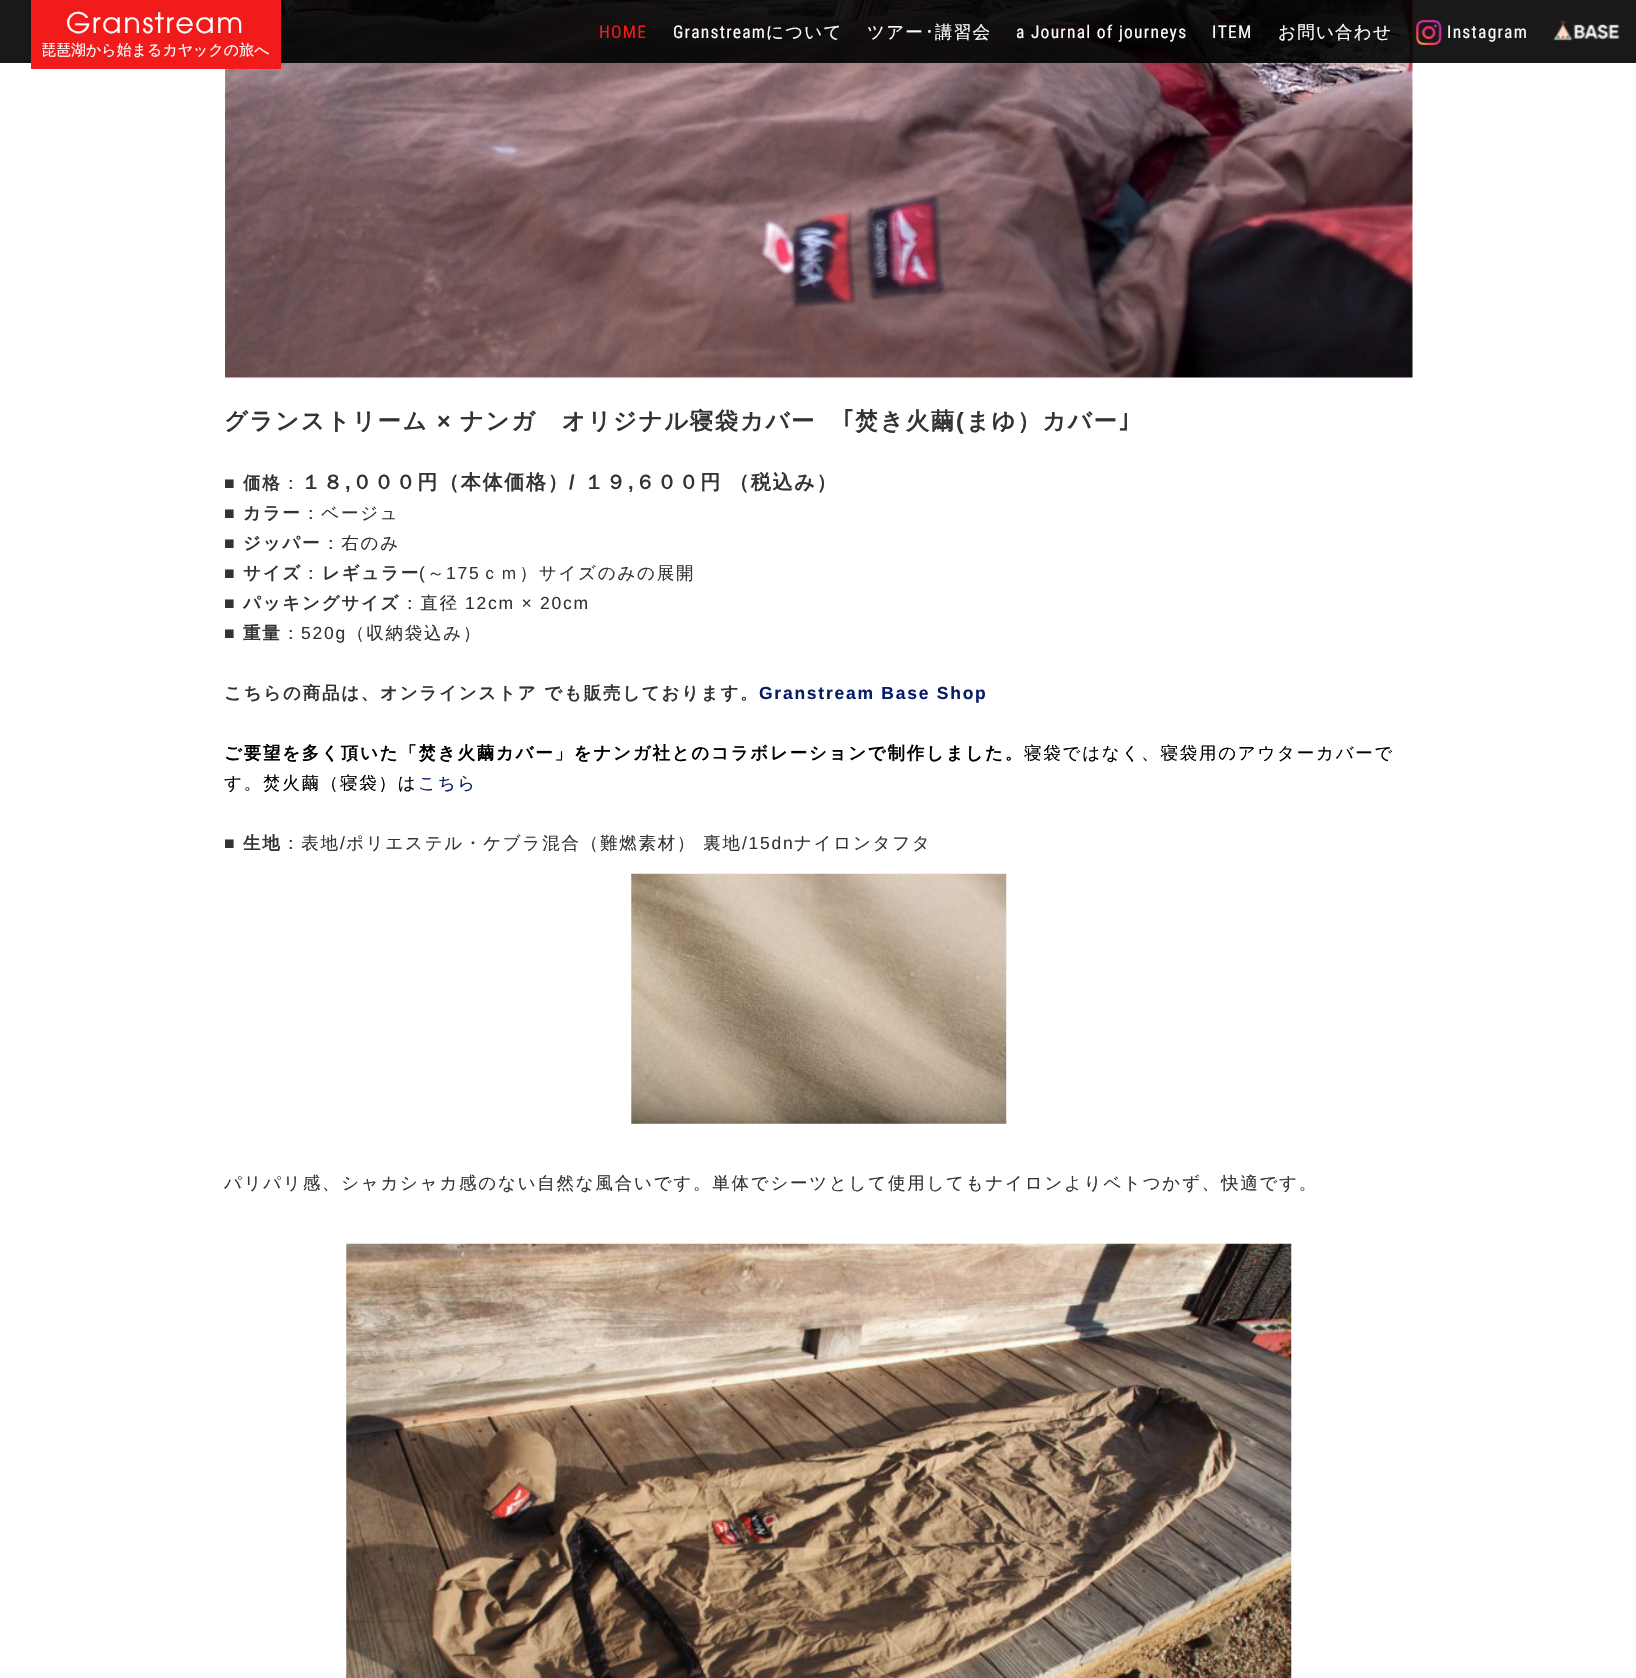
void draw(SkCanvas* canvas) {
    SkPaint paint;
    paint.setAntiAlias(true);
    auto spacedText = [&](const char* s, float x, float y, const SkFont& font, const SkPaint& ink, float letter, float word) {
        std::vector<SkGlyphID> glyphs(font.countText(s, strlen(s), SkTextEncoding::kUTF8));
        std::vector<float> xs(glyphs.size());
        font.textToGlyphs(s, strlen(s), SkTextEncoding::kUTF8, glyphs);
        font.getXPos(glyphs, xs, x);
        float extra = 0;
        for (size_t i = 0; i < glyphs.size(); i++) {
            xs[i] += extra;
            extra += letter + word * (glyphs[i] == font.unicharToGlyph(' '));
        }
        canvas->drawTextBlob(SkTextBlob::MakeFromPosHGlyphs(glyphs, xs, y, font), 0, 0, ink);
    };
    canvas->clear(0xFFFFFFFF);
    canvas->drawImageRect(SkImages::DeferredFromEncodedData(SkData::MakeFromFileName("img3.png")), SkRect::MakeXYWH(225, 0, 1188, 378), SkSamplingOptions());
    paint.setColor(0xE6000000);
    canvas->drawRect(SkRect::MakeXYWH(0, 0, 1636, 63), paint);
    paint.setColor(0xFFF21B1B);
    canvas->drawRect(SkRect::MakeXYWH(31, 0, 250, 69), paint);
    SkFont font1(fontMgr->matchFamilyStyle("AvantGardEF", SkFontStyle::Normal()), 31.25f);
    font1.setSubpixel(true);
    paint.setColor(0xFFFFFFFF);
    spacedText("Granstream", 66, 33, font1, paint, 1.5f, 0);
    SkFont font2(fontMgr->matchFamilyStyle("WenQuanYi Zen Hei", SkFontStyle(500, SkFontStyle::kNormal_Width, SkFontStyle::kUpright_Slant)), 15);
    font2.setSubpixel(true);
    canvas->drawString("琵琶湖から始まるカヤックの旅へ", 41, 55, font2, paint);
    SkFont font3(fontMgr->matchFamilyStyle("Roboto Condensed", SkFontStyle::Normal()), 17.5f);
    font3.setSubpixel(true);
    paint.setColor(0xFFF21B1B);
    spacedText("HOME", 599, 38, font3, paint, 1.25f, 0);
    paint.setColor(0xFFFFFFFF);
    spacedText("Granstream", 673, 38, font3, paint, 1.25f, 0);
    SkFont font4(fontMgr->matchFamilyStyle("WenQuanYi Zen Hei", SkFontStyle(500, SkFontStyle::kNormal_Width, SkFontStyle::kUpright_Slant)), 17.5f);
    font4.setSubpixel(true);
    spacedText("について", 766, 38, font4, paint, 1.25f, 0);
    spacedText("ツアー", 867, 38, font4, paint, 1.25f, 0);
    SkFont font5(fontMgr->matchFamilyStyle("IPAPGothic", SkFontStyle::Normal()), 17.5f);
    font5.setSubpixel(true);
    spacedText("･", 925, 38, font5, paint, 1.25f, 0);
    spacedText("講習会", 935, 38, font4, paint, 1.25f, 0);
    spacedText("a Journal of journeys", 1016, 38, font3, paint, 1.25f, 0);
    spacedText("ITEM", 1212, 38, font3, paint, 1.25f, 0);
    spacedText("お問い合わせ", 1278, 38, font4, paint, 1.25f, 0);
    canvas->drawImageRect(SkImages::DeferredFromEncodedData(SkData::MakeFromFileName("img1.png")), SkRect::MakeXYWH(1416, 20, 26, 25), SkSamplingOptions());
    spacedText("Instagram", 1447, 38, font3, paint, 1.25f, 0);
    canvas->drawImageRect(SkImages::DeferredFromEncodedData(SkData::MakeFromFileName("img2.png")), SkRect::MakeXYWH(1553, 20, 67, 21), SkSamplingOptions());
    SkFont font6(fontMgr->matchFamilyStyle("WenQuanYi Zen Hei", SkFontStyle::Bold()), 23.3f);
    font6.setSubpixel(true);
    paint.setColor(0xFF333333);
    spacedText("グランストリーム", 224, 429, font6, paint, 1.75f, 0);
    SkFont font7(fontMgr->matchFamilyStyle("Liberation Sans", SkFontStyle::Bold()), 23.3f);
    font7.setSubpixel(true);
    spacedText("×", 437, 429, font7, paint, 1.75f, 0);
    spacedText("ナンガ　オリジナル寝袋カバー", 460, 429, font6, paint, 1.75f, 0);
    SkFont font8(fontMgr->matchFamilyStyle("IPAPGothic", SkFontStyle::Bold()), 23.3f);
    font8.setSubpixel(true);
    spacedText("｢", 842, 429, font8, paint, 1.75f, 0);
    spacedText("焚き火繭", 855, 429, font6, paint, 1.75f, 0);
    spacedText("(", 956, 429, font7, paint, 1.75f, 0);
    spacedText("まゆ）カバー", 966, 429, font6, paint, 1.75f, 0);
    spacedText("｣", 1118, 429, font8, paint, 1.75f, 0);
    SkFont font9(fontMgr->matchFamilyStyle("Liberation Sans", SkFontStyle::Normal()), 17.5f);
    font9.setSubpixel(true);
    spacedText("■", 224, 489, font9, paint, 1.75f, 0);
    SkFont font10(fontMgr->matchFamilyStyle("WenQuanYi Zen Hei", SkFontStyle::Bold()), 17.5f);
    font10.setSubpixel(true);
    spacedText("価格", 243, 489, font10, paint, 1.75f, 0);
    spacedText("：", 282, 489, font4, paint, 1.75f, 0);
    SkFont font11(fontMgr->matchFamilyStyle("WenQuanYi Zen Hei", SkFontStyle::Bold()), 20);
    font11.setSubpixel(true);
    spacedText("１８", 301, 489, font11, paint, 1.75f, 0);
    SkFont font12(fontMgr->matchFamilyStyle("Liberation Sans", SkFontStyle::Bold()), 20);
    font12.setSubpixel(true);
    spacedText(",", 345, 489, font12, paint, 1.75f, 0);
    spacedText("０００円（本体価格）", 352, 489, font11, paint, 1.75f, 0);
    spacedText("/", 569, 489, font12, paint, 1.75f, 0);
    spacedText("１９", 584, 489, font11, paint, 1.75f, 0);
    spacedText(",", 628, 489, font12, paint, 1.75f, 0);
    spacedText("６００円", 635, 489, font11, paint, 1.75f, 0);
    spacedText("（税込み）", 729, 489, font11, paint, 1.75f, 0);
    spacedText("■", 224, 519, font9, paint, 1.75f, 0);
    spacedText("カラー", 243, 519, font10, paint, 1.75f, 0);
    spacedText("：ベージュ", 302, 519, font4, paint, 1.75f, 0);
    spacedText("■", 224, 549, font9, paint, 1.75f, 0);
    spacedText("ジッパー", 243, 549, font10, paint, 1.75f, 0);
    spacedText("：右のみ", 322, 549, font4, paint, 1.75f, 0);
    spacedText("■", 224, 579, font9, paint, 1.75f, 0);
    spacedText("サイズ", 243, 579, font10, paint, 1.75f, 0);
    spacedText("：", 302, 579, font4, paint, 1.75f, 0);
    spacedText("レギュラー", 322, 579, font10, paint, 1.75f, 0);
    spacedText("(", 419, 579, font9, paint, 1.75f, 0);
    spacedText("～", 427, 579, font4, paint, 1.75f, 0);
    spacedText("175", 446, 579, font9, paint, 1.75f, 0);
    spacedText("ｃｍ）サイズのみの展開", 481, 579, font4, paint, 1.75f, 0);
    spacedText("■", 224, 609, font9, paint, 1.75f, 0);
    spacedText("パッキングサイズ", 243, 609, font10, paint, 1.75f, 0);
    spacedText("：直径", 401, 609, font4, paint, 1.75f, 0);
    spacedText("12cm × 20cm", 465, 609, font9, paint, 1.75f, 0);
    spacedText("■", 224, 639, font9, paint, 1.75f, 0);
    spacedText("重量", 243, 639, font10, paint, 1.75f, 0);
    spacedText("：", 282, 639, font4, paint, 1.75f, 0);
    spacedText("520g", 301, 639, font9, paint, 1.75f, 0);
    spacedText("（収納袋込み）", 347, 639, font4, paint, 1.75f, 0);
    spacedText("こちらの商品は、オンラインストア でも販売しております。", 224, 699, font10, paint, 1.75f, 0);
    SkFont font13(fontMgr->matchFamilyStyle("Liberation Sans", SkFontStyle::Bold()), 17.5f);
    font13.setSubpixel(true);
    paint.setColor(0xFF061B68);
    spacedText("Granstream Base Shop", 759, 699, font13, paint, 1.75f, 0);
    paint.setColor(0xFF000000);
    spacedText("ご要望を多く頂いた「焚き火繭カバー」をナンガ社とのコラボレーションで制作しました。", 224, 759, font10, paint, 1.75f, 0);
    spacedText("寝袋ではなく、寝袋用のアウターカバーで", 1024, 759, font4, paint, 1.75f, 0);
    spacedText("す。焚火繭（寝袋）は", 224, 789, font4, paint, 1.75f, 0);
    paint.setColor(0xFF061B68);
    spacedText("こちら", 418, 789, font4, paint, 1.75f, 0);
    paint.setColor(0xFF333333);
    spacedText("■", 224, 849, font9, paint, 1.75f, 0);
    spacedText("生地", 243, 849, font10, paint, 1.75f, 0);
    spacedText("：表地", 282, 849, font4, paint, 1.75f, 0);
    spacedText("/", 340, 849, font9, paint, 1.75f, 0);
    spacedText("ポリエステル・ケブラ混合（難燃素材） 裏地", 346, 849, font4, paint, 1.75f, 0);
    spacedText("/15dn", 742, 849, font9, paint, 1.75f, 0);
    spacedText("ナイロンタフタ", 794, 849, font4, paint, 1.75f, 0);
    canvas->drawImageRect(SkImages::DeferredFromEncodedData(SkData::MakeFromFileName("img4.png")), SkRect::MakeXYWH(631, 873, 376, 251), SkSamplingOptions());
    spacedText("パリパリ感、シャカシャカ感のない自然な風合いです。単体でシーツとして使用してもナイロンよりベトつかず、快適です。", 224, 1189, font4, paint, 1.75f, 0);
    canvas->drawImageRect(SkImages::DeferredFromEncodedData(SkData::MakeFromFileName("img5.png")), SkRect::MakeXYWH(346, 1243, 946, 435), SkSamplingOptions());
}
